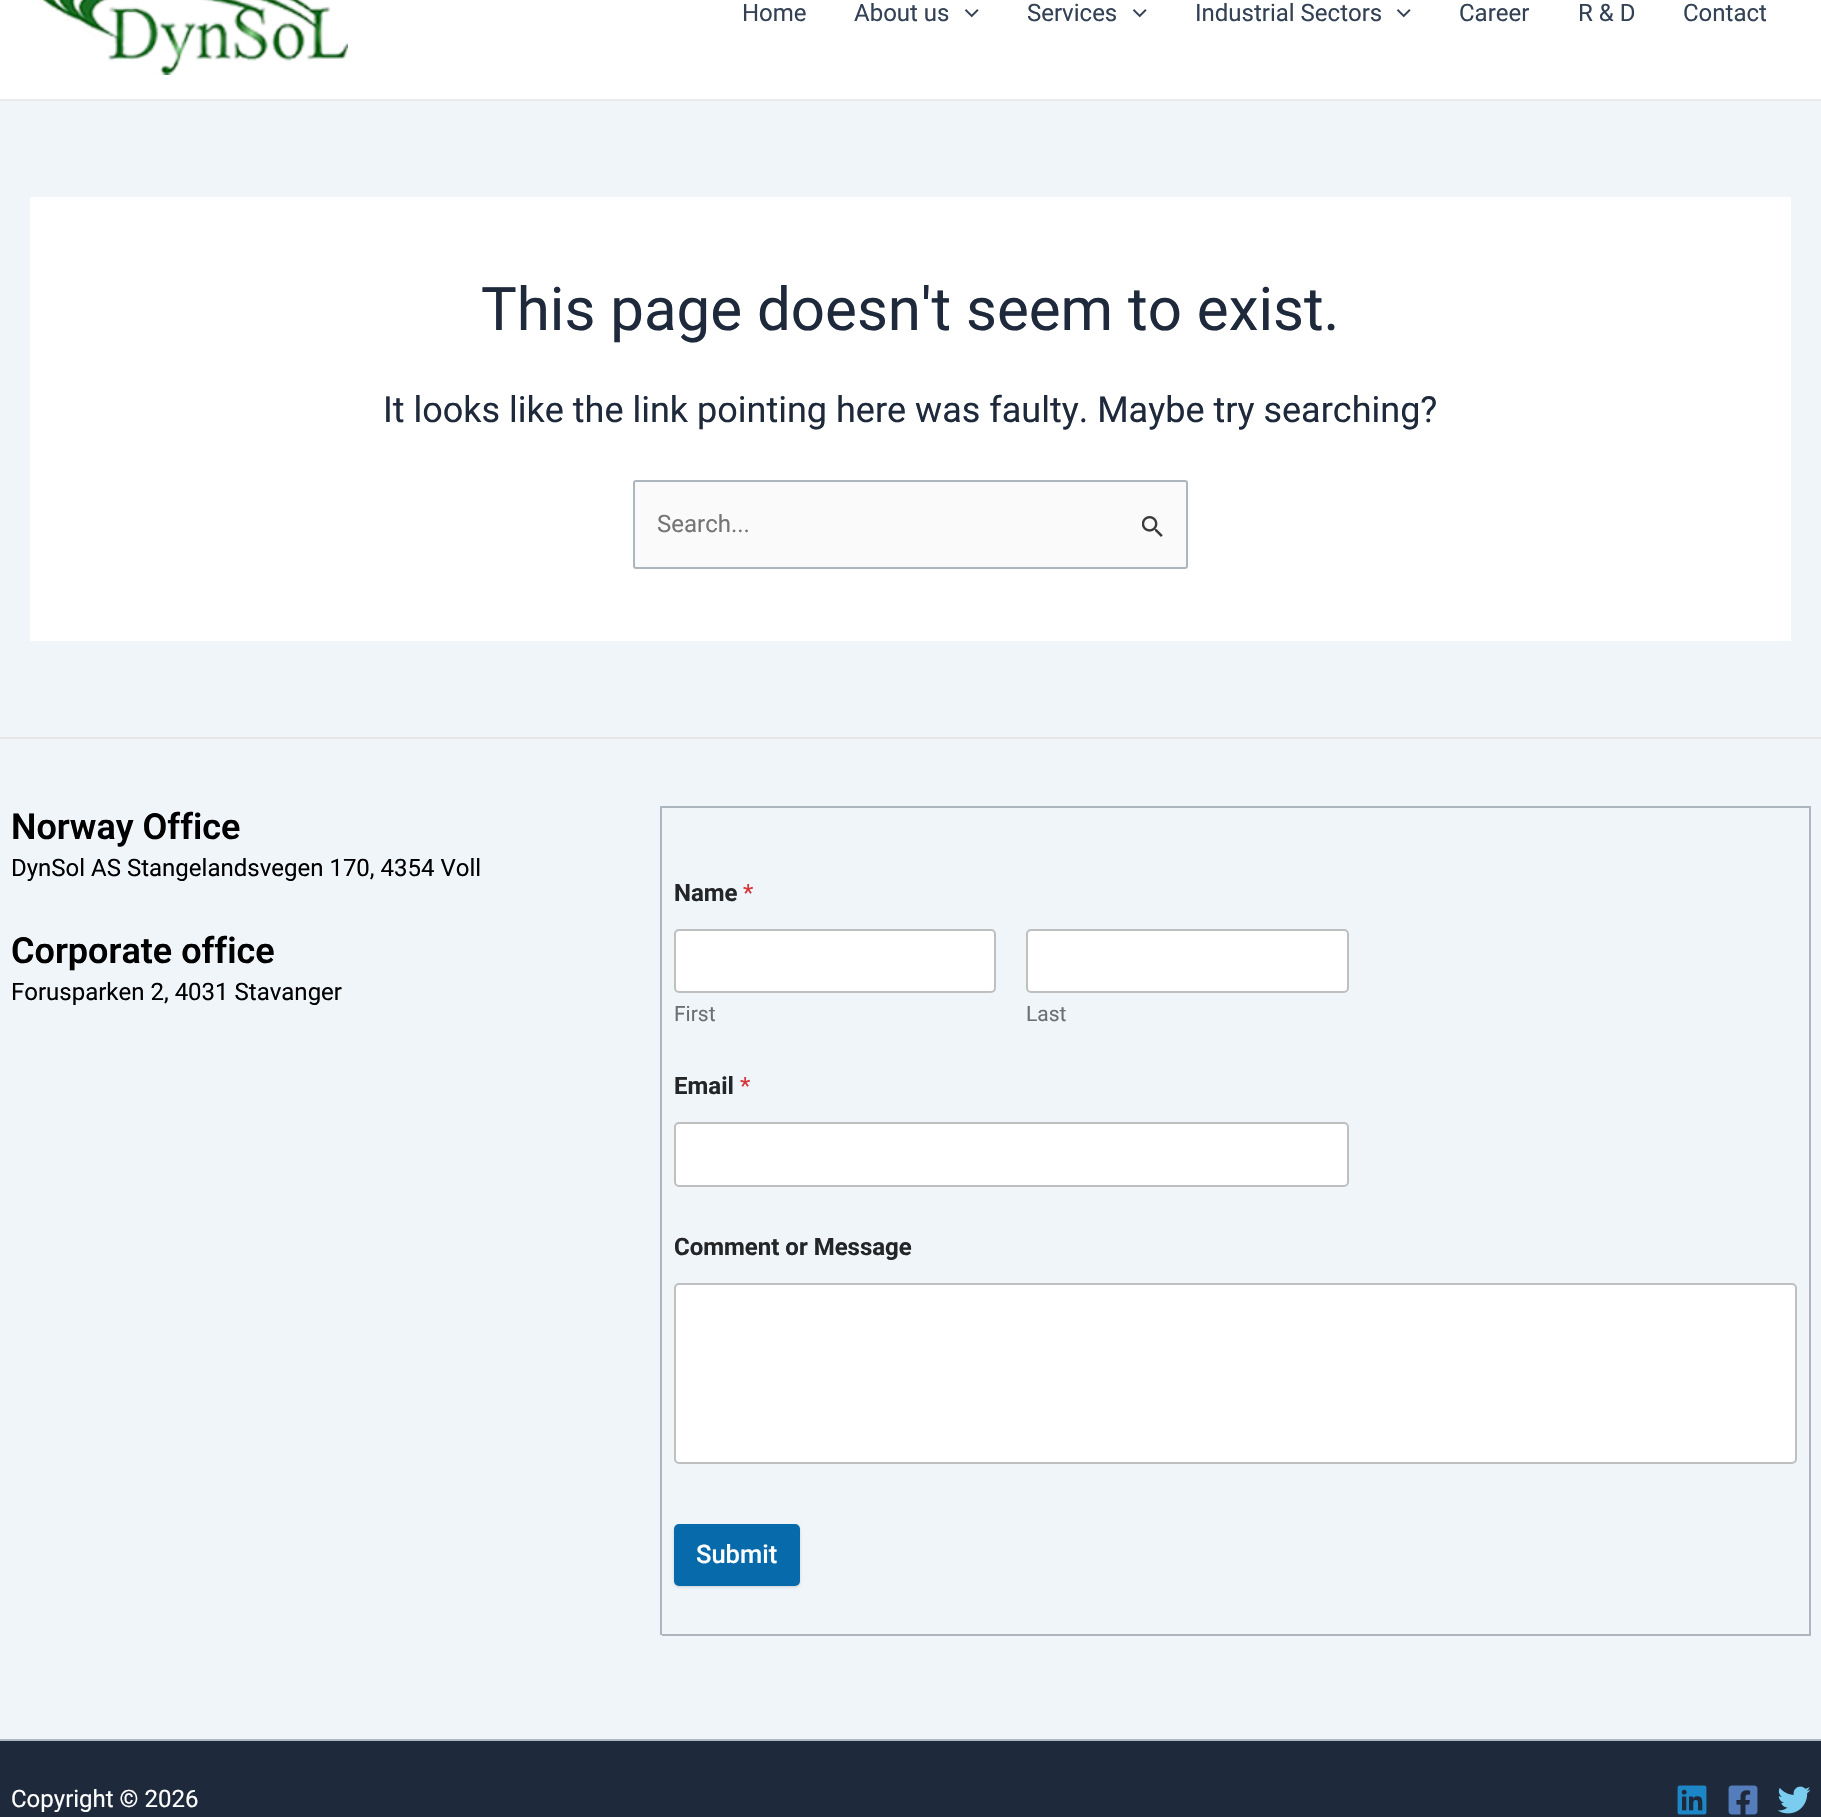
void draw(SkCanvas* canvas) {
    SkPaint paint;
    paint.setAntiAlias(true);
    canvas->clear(0xFFF0F5FA);
    paint.setColor(0xFFFFFFFF);
    canvas->drawRect(SkRect::MakeXYWH(0, 0, 1821, 99), paint);
    paint.setColor(0xFFEAEAEA);
    canvas->drawRect(SkRect::MakeXYWH(0, 99, 1821, 2), paint);
    canvas->drawImageRect(SkImages::DeferredFromEncodedData(SkData::MakeFromFileName("img1.png")), SkRect::MakeXYWH(32, 0, 316, 75), SkSamplingOptions());
    SkFont font1(fontMgr->matchFamilyStyle("Roboto", SkFontStyle::Normal()), 24);
    font1.setSubpixel(true);
    paint.setColor(0xFF334155);
    canvas->drawString("Home", 742, 21, font1, paint);
    canvas->drawString("About us", 854, 21, font1, paint);
    canvas->drawImageRect(SkImages::DeferredFromEncodedData(SkData::MakeFromFileName("img2.png")), SkRect::MakeXYWH(965, 9, 14, 9), SkSamplingOptions());
    canvas->drawString("Services", 1027, 21, font1, paint);
    canvas->drawImageRect(SkImages::DeferredFromEncodedData(SkData::MakeFromFileName("img2.png")), SkRect::MakeXYWH(1133, 9, 14, 9), SkSamplingOptions());
    canvas->drawString("Industrial Sectors", 1195, 21, font1, paint);
    canvas->drawImageRect(SkImages::DeferredFromEncodedData(SkData::MakeFromFileName("img2.png")), SkRect::MakeXYWH(1397, 9, 14, 9), SkSamplingOptions());
    canvas->drawString("Career", 1459, 21, font1, paint);
    canvas->drawString("R & D", 1578, 21, font1, paint);
    canvas->drawString("Contact", 1683, 21, font1, paint);
    paint.setColor(0xFFFFFFFF);
    canvas->drawRect(SkRect::MakeXYWH(30, 197, 1761, 444), paint);
    SkFont font2(fontMgr->matchFamilyStyle("Roboto", SkFontStyle::Normal()), 60);
    font2.setSubpixel(true);
    paint.setColor(0xFF1E293B);
    canvas->drawString("This page doesn't seem to exist.", 481, 330, font2, paint);
    SkFont font3(fontMgr->matchFamilyStyle("Roboto", SkFontStyle::Normal()), 36);
    font3.setSubpixel(true);
    canvas->drawString("It looks like the link pointing here was faulty. Maybe try searching?", 383, 422, font3, paint);
    paint.setColor(0xFFFAFAFA);
    canvas->drawRoundRect(SkRect::MakeXYWH(634, 481, 553, 87), 2, 2, paint);
    paint.setStyle(SkPaint::kStroke_Style);
    paint.setStrokeWidth(2);
    paint.setColor(0xFFADB6BE);
    canvas->drawRoundRect(SkRect::MakeXYWH(634, 481, 553, 87), 2, 2, paint);
    paint.setStyle(SkPaint::kFill_Style);
    paint.setColor(0xFF757575);
    canvas->drawString("Search...", 657, 532, font1, paint);
    canvas->drawImageRect(SkImages::DeferredFromEncodedData(SkData::MakeFromFileName("img3.png")), SkRect::MakeXYWH(1142, 516, 21, 21), SkSamplingOptions());
    paint.setColor(0xFFE6E6E6);
    canvas->drawRect(SkRect::MakeXYWH(0, 737, 1821, 2), paint);
    SkFont font4(fontMgr->matchFamilyStyle("Roboto", SkFontStyle(600, SkFontStyle::kNormal_Width, SkFontStyle::kUpright_Slant)), 36);
    font4.setSubpixel(true);
    paint.setColor(0xFF000000);
    canvas->drawString("Norway Office", 11, 839, font4, paint);
    canvas->drawString("DynSol AS Stangelandsvegen 170, 4354 Voll", 11, 876, font1, paint);
    canvas->drawString("Corporate office", 11, 963, font4, paint);
    canvas->drawString("Forusparken 2, 4031 Stavanger", 11, 1000, font1, paint);
    paint.setColor(0xFFADB6BE);
    canvas->drawRect(SkRect::MakeXYWH(660, 806, 1151, 2), paint);
    canvas->drawRect(SkRect::MakeXYWH(660, 806, 2, 829), paint);
    canvas->drawRect(SkRect::MakeXYWH(1809, 807, 2, 828), paint);
    canvas->drawRect(SkRect::MakeXYWH(662, 1634, 1149, 2), paint);
    SkFont font5(fontMgr->matchFamilyStyle("Roboto", SkFontStyle::Bold()), 24);
    font5.setSubpixel(true);
    paint.setColor(0xFF242526);
    canvas->drawString("Name", 674, 901, font5, paint);
    paint.setColor(0xFFD63637);
    canvas->drawString("*", 743, 901, font1, paint);
    paint.setColor(0xFFFFFFFF);
    canvas->drawRoundRect(SkRect::MakeXYWH(674, 929, 322, 64), 5, 5, paint);
    paint.setStyle(SkPaint::kStroke_Style);
    paint.setColor(0x40000000);
    canvas->drawRoundRect(SkRect::MakeXYWH(675, 930, 320, 62), 4, 4, paint);
    SkFont font6(fontMgr->matchFamilyStyle("Roboto", SkFontStyle::Normal()), 21);
    font6.setSubpixel(true);
    paint.setStyle(SkPaint::kFill_Style);
    paint.setColor(0xFF6C6E71);
    canvas->drawString("First", 674, 1021, font6, paint);
    paint.setColor(0xFFFFFFFF);
    canvas->drawRoundRect(SkRect::MakeXYWH(1026, 929, 323, 64), 5, 5, paint);
    paint.setStyle(SkPaint::kStroke_Style);
    paint.setColor(0x40000000);
    canvas->drawRoundRect(SkRect::MakeXYWH(1027, 930, 321, 62), 4, 4, paint);
    paint.setStyle(SkPaint::kFill_Style);
    paint.setColor(0xFF6C6E71);
    canvas->drawString("Last", 1026, 1021, font6, paint);
    paint.setColor(0xFF242526);
    canvas->drawString("Email", 674, 1094, font5, paint);
    paint.setColor(0xFFD63637);
    canvas->drawString("*", 740, 1094, font1, paint);
    paint.setColor(0xFFFFFFFF);
    canvas->drawRoundRect(SkRect::MakeXYWH(674, 1122, 675, 65), 5, 5, paint);
    paint.setStyle(SkPaint::kStroke_Style);
    paint.setColor(0x40000000);
    canvas->drawRoundRect(SkRect::MakeXYWH(675, 1123, 673, 63), 4, 4, paint);
    paint.setStyle(SkPaint::kFill_Style);
    paint.setColor(0xFF242526);
    canvas->drawString("Comment or Message", 674, 1255, font5, paint);
    paint.setColor(0xFFFFFFFF);
    canvas->drawRoundRect(SkRect::MakeXYWH(674, 1283, 1123, 181), 5, 5, paint);
    paint.setStyle(SkPaint::kStroke_Style);
    paint.setColor(0x40000000);
    canvas->drawRoundRect(SkRect::MakeXYWH(675, 1284, 1121, 179), 4, 4, paint);
    paint.setStyle(SkPaint::kFill_Style);
    paint.setColor(0x26000000);
    paint.setMaskFilter(SkMaskFilter::MakeBlur(kNormal_SkBlurStyle, 1.5f));
    canvas->drawRoundRect(SkRect::MakeXYWH(674, 1526, 126, 61), 5, 5, paint);
    paint.setMaskFilter(nullptr);
    paint.setColor(0xFF066AAB);
    canvas->drawRoundRect(SkRect::MakeXYWH(674, 1524, 126, 62), 5, 5, paint);
    SkFont font7(fontMgr->matchFamilyStyle("Roboto", SkFontStyle(500, SkFontStyle::kNormal_Width, SkFontStyle::kUpright_Slant)), 25.5f);
    font7.setSubpixel(true);
    paint.setColor(0xFFFFFFFF);
    canvas->drawString("Submit", 696, 1563, font7, paint);
    paint.setColor(0xFF1E293B);
    canvas->drawRect(SkRect::MakeXYWH(0, 1741, 1821, 76), paint);
    paint.setColor(0xFFADB6BE);
    canvas->drawRect(SkRect::MakeXYWH(0, 1739, 1821, 2), paint);
    paint.setColor(0xFFFFFFFF);
    canvas->drawString("Copyright © 2026", 11, 1807, font1, paint);
    canvas->drawImageRect(SkImages::DeferredFromEncodedData(SkData::MakeFromFileName("img4.png")), SkRect::MakeXYWH(1677, 1785, 30, 30), SkSamplingOptions());
    canvas->drawImageRect(SkImages::DeferredFromEncodedData(SkData::MakeFromFileName("img5.png")), SkRect::MakeXYWH(1728, 1785, 30, 30), SkSamplingOptions());
    canvas->drawImageRect(SkImages::DeferredFromEncodedData(SkData::MakeFromFileName("img6.png")), SkRect::MakeXYWH(1778, 1786, 33, 28), SkSamplingOptions());
}
